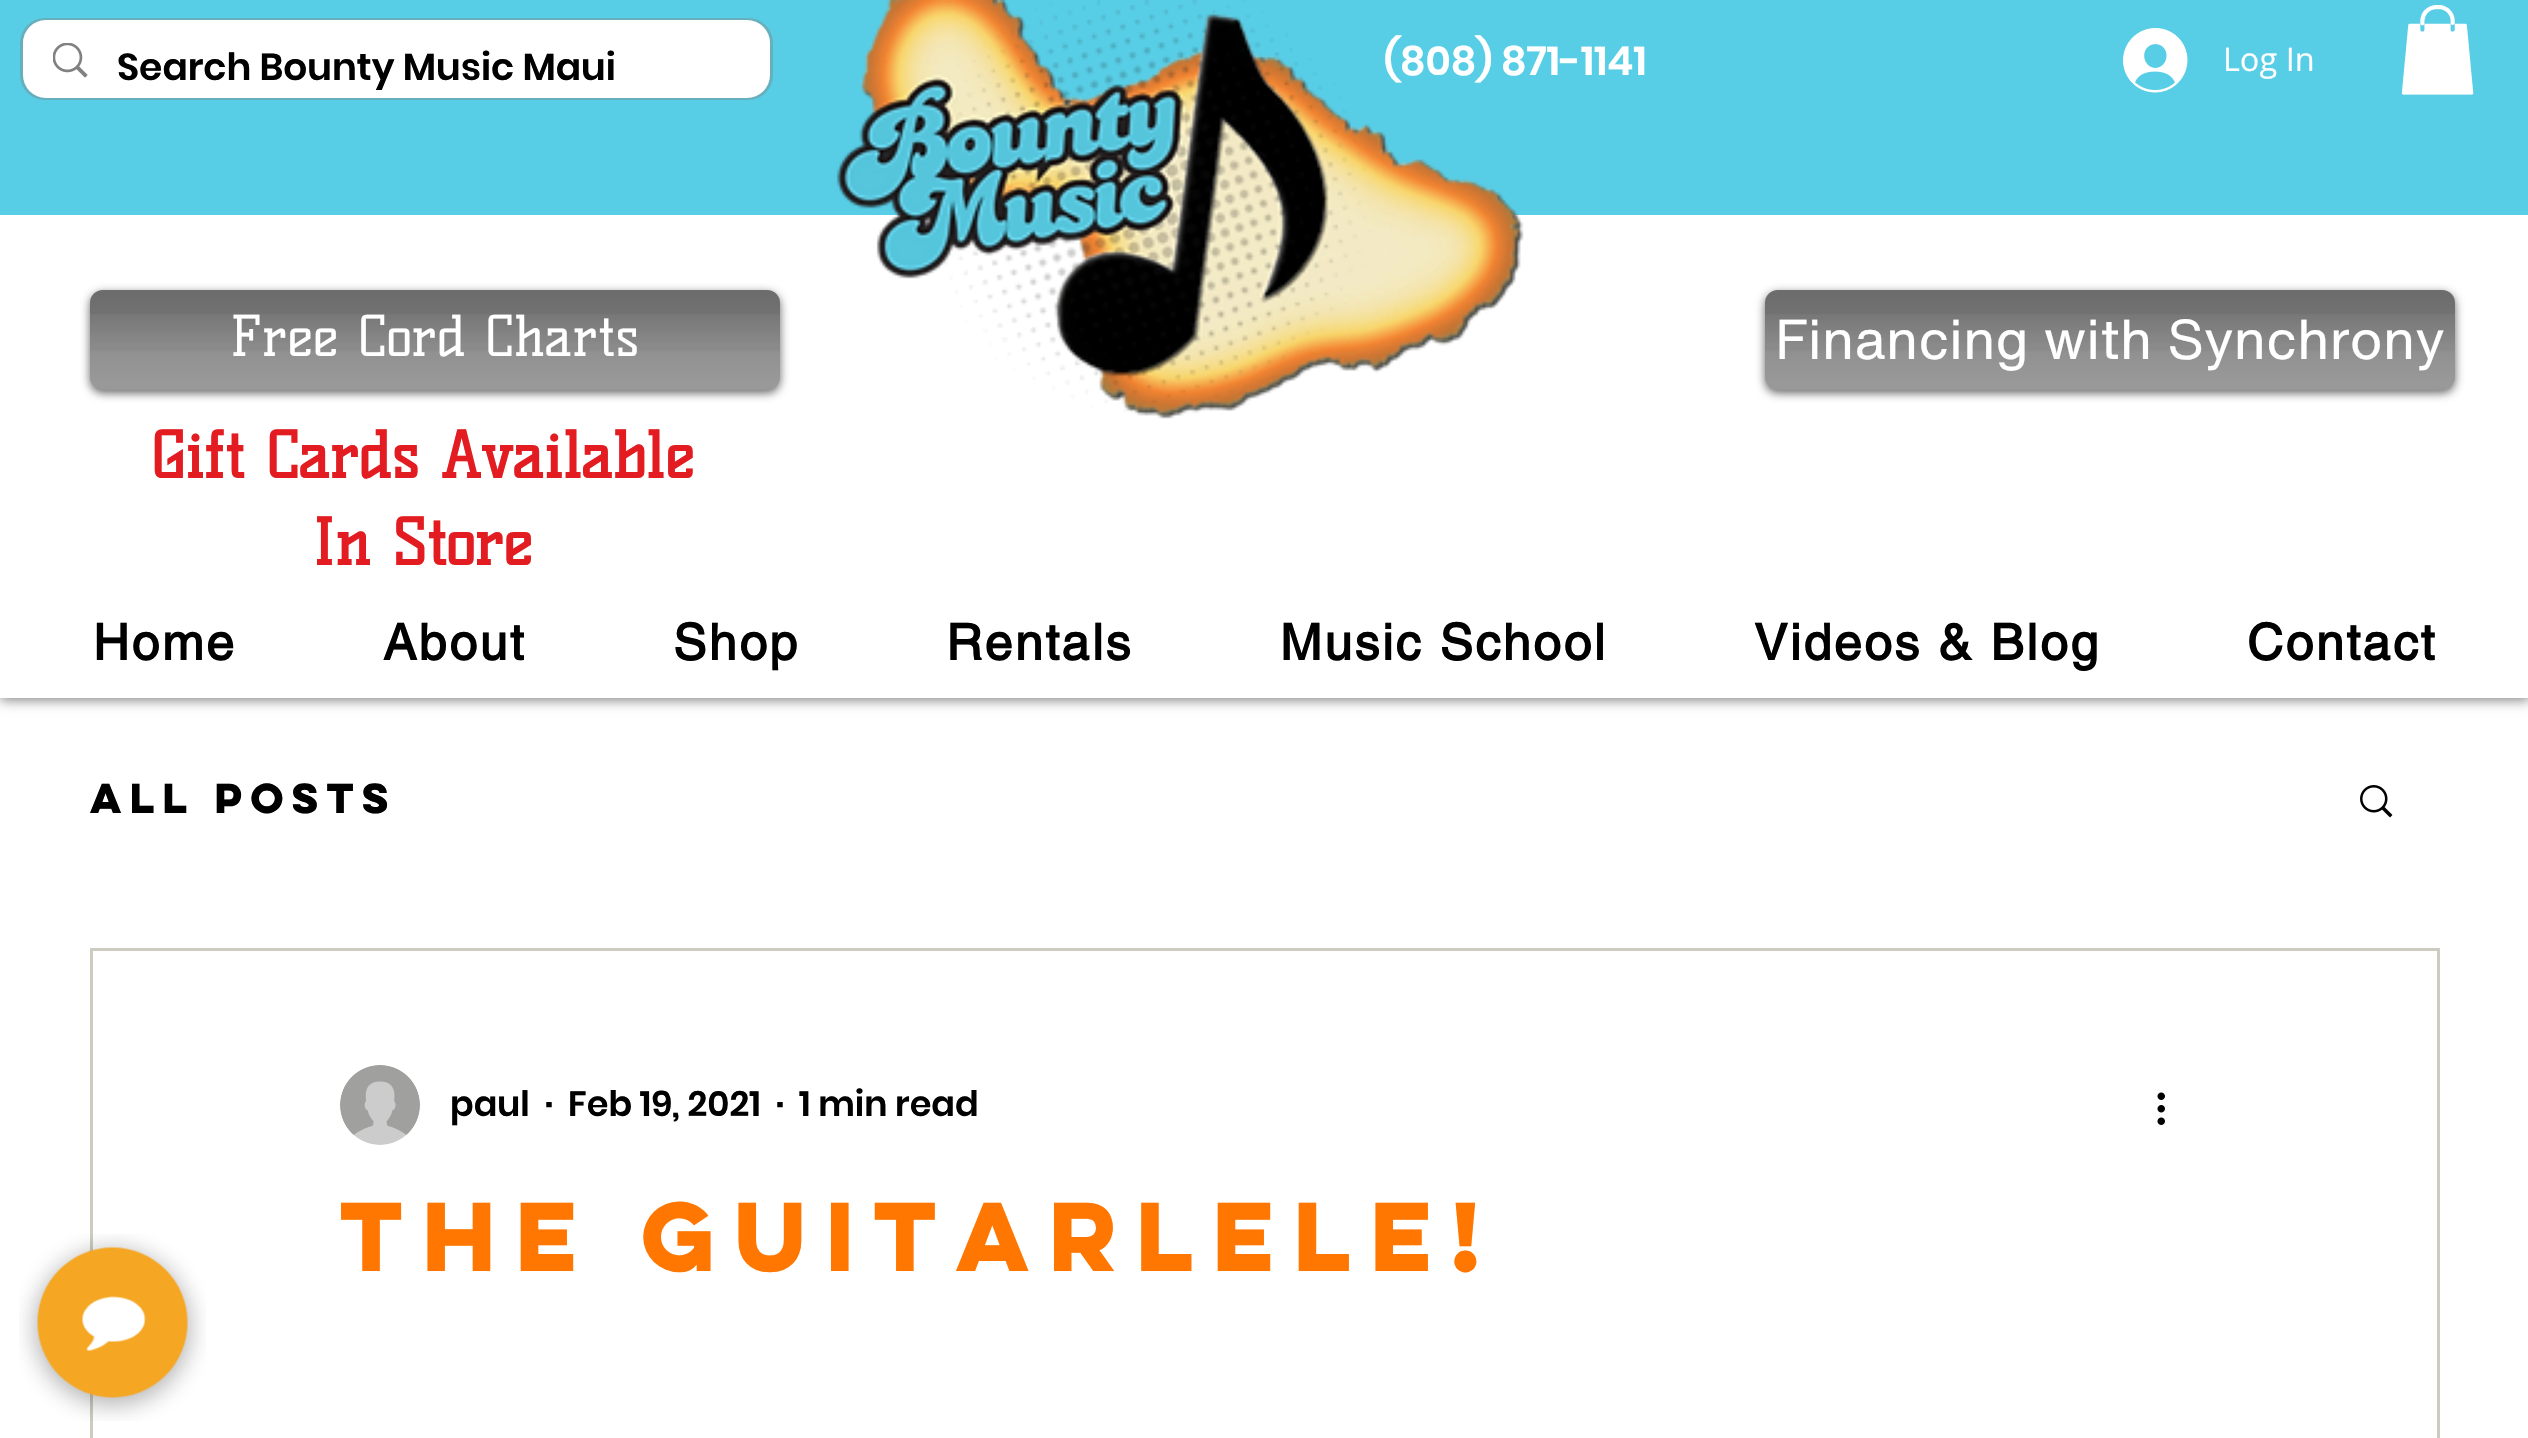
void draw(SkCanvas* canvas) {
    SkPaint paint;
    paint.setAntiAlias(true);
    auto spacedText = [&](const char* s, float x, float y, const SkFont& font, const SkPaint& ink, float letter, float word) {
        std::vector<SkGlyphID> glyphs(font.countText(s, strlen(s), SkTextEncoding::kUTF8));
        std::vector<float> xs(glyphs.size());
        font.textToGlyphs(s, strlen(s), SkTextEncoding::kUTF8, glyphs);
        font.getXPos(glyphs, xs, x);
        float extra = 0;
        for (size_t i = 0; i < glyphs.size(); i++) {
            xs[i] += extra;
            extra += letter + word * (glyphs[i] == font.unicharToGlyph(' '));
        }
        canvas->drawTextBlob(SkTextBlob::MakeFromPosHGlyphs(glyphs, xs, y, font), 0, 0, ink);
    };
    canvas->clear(0xFFFFFFFF);
    paint.setColor(0x80000000);
    paint.setMaskFilter(SkMaskFilter::MakeBlur(kNormal_SkBlurStyle, 6));
    canvas->drawRect(SkRect::MakeXYWH(0, 3, 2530, 697), paint);
    paint.setMaskFilter(nullptr);
    paint.setColor(0xFFFFFFFF);
    canvas->drawRect(SkRect::MakeXYWH(0, 215, 2528, 483), paint);
    paint.setColor(0xFF58CEE6);
    canvas->drawRect(SkRect::MakeXYWH(0, 0, 2528, 215), paint);
    SkFont font1(fontMgr->matchFamilyStyle("Poppins", SkFontStyle(600, SkFontStyle::kNormal_Width, SkFontStyle::kUpright_Slant)), 40);
    font1.setSubpixel(true);
    paint.setColor(0xFFFFFFFF);
    canvas->drawString("(808) 871-1141", 1384, 75, font1, paint);
    canvas->drawImageRect(SkImages::DeferredFromEncodedData(SkData::MakeFromFileName("img1.png")), SkRect::MakeXYWH(836, 0, 688, 419), SkSamplingOptions());
    paint.setStyle(SkPaint::kStroke_Style);
    paint.setStrokeWidth(3);
    paint.setColor(0xFF68AFBE);
    canvas->drawRoundRect(SkRect::MakeXYWH(21.5f, 19.5f, 750, 79), 23.5f, 23.5f, paint);
    paint.setStyle(SkPaint::kFill_Style);
    paint.setColor(0xFFFFFFFF);
    canvas->drawRoundRect(SkRect::MakeXYWH(23, 20, 747, 78), 23, 23, paint);
    canvas->drawImageRect(SkImages::DeferredFromEncodedData(SkData::MakeFromFileName("img2.png")), SkRect::MakeXYWH(53, 43, 35, 35), SkSamplingOptions());
    SkFont font2(fontMgr->matchFamilyStyle("Poppins", SkFontStyle(600, SkFontStyle::kNormal_Width, SkFontStyle::kUpright_Slant)), 37.5f);
    font2.setSubpixel(true);
    paint.setColor(0xFF000000);
    canvas->drawString("Search Bounty Music Maui", 117, 80, font2, paint);
    canvas->drawImageRect(SkImages::DeferredFromEncodedData(SkData::MakeFromFileName("img3.png")), SkRect::MakeXYWH(2123, 28, 65, 65), SkSamplingOptions());
    SkFont font3(fontMgr->matchFamilyStyle("Open Sans", SkFontStyle::Normal()), 32.5f);
    font3.setSubpixel(true);
    paint.setColor(0xFFFFFFFF);
    canvas->drawString("Log In", 2223, 71, font3, paint);
    canvas->drawImageRect(SkImages::DeferredFromEncodedData(SkData::MakeFromFileName("img4.png")), SkRect::MakeXYWH(2401, 5, 73, 90), SkSamplingOptions());
    paint.setColor(0x99000000);
    paint.setMaskFilter(SkMaskFilter::MakeBlur(kNormal_SkBlurStyle, 5));
    canvas->drawRoundRect(SkRect::MakeXYWH(90, 293, 690, 100), 13, 13, paint);
    paint.setMaskFilter(nullptr);
    paint.setColor(0xFF818181);
    canvas->drawRoundRect(SkRect::MakeXYWH(90, 290, 690, 100), 13, 13, paint);
    canvas->drawImageRect(SkImages::DeferredFromEncodedData(SkData::MakeFromFileName("img5.png")), SkRect::MakeXYWH(90, 290, 690, 61), SkSamplingOptions());
    canvas->drawImageRect(SkImages::DeferredFromEncodedData(SkData::MakeFromFileName("img6.png")), SkRect::MakeXYWH(90, 314, 690, 76), SkSamplingOptions());
    SkFont font4(fontMgr->matchFamilyStyle("Kelly Slab", SkFontStyle::Normal()), 55);
    font4.setSubpixel(true);
    paint.setColor(0xFFFFFFFF);
    canvas->drawString("Free Cord Charts", 230, 356, font4, paint);
    paint.setColor(0x99000000);
    paint.setMaskFilter(SkMaskFilter::MakeBlur(kNormal_SkBlurStyle, 5));
    canvas->drawRoundRect(SkRect::MakeXYWH(1765, 293, 690, 100), 13, 13, paint);
    paint.setMaskFilter(nullptr);
    paint.setColor(0xFF818181);
    canvas->drawRoundRect(SkRect::MakeXYWH(1765, 290, 690, 100), 13, 13, paint);
    canvas->drawImageRect(SkImages::DeferredFromEncodedData(SkData::MakeFromFileName("img5.png")), SkRect::MakeXYWH(1765, 290, 690, 61), SkSamplingOptions());
    canvas->drawImageRect(SkImages::DeferredFromEncodedData(SkData::MakeFromFileName("img6.png")), SkRect::MakeXYWH(1765, 314, 690, 76), SkSamplingOptions());
    SkFont font5(fontMgr->matchFamilyStyle("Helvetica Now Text", SkFontStyle::Normal()), 55);
    font5.setSubpixel(true);
    paint.setColor(0xFFFFFFFF);
    canvas->drawString("Financing with Synchrony", 1775, 359, font5, paint);
    SkFont font6(fontMgr->matchFamilyStyle("Kelly Slab", SkFontStyle::Bold()), 62.5f);
    font6.setSubpixel(true);
    paint.setColor(0xFFE21C21);
    canvas->drawString("Gift Cards Available", 151, 478, font6, paint);
    canvas->drawString("In Store", 312, 565, font6, paint);
    SkFont font7(fontMgr->matchFamilyStyle("helvetica", SkFontStyle::Bold()), 50);
    font7.setSubpixel(true);
    paint.setColor(0xFF000000);
    spacedText("Home", 93, 660, font7, paint, 2.5f, 0);
    spacedText("About", 383, 660, font7, paint, 2.5f, 0);
    spacedText("Shop", 673, 660, font7, paint, 2.5f, 0);
    spacedText("Rentals", 946, 660, font7, paint, 2.5f, 0);
    spacedText("Music School", 1280, 660, font7, paint, 2.5f, 0);
    spacedText("Videos & Blog", 1754, 660, font7, paint, 2.5f, 0);
    spacedText("Contact", 2247, 660, font7, paint, 2.5f, 0);
    SkFont font8(fontMgr->matchFamilyStyle("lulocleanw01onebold", SkFontStyle::Bold()), 37.5f);
    font8.setSubpixel(true);
    canvas->drawString("All Posts", 90, 813, font8, paint);
    canvas->drawImageRect(SkImages::DeferredFromEncodedData(SkData::MakeFromFileName("img7.png")), SkRect::MakeXYWH(2360, 785, 33, 33), SkSamplingOptions());
    paint.setStyle(SkPaint::kStroke_Style);
    paint.setColor(0xFFCECCC0);
    canvas->drawRect(SkRect::MakeXYWH(91.5f, 949.5f, 2347, 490), paint);
    canvas->drawImageRect(SkImages::DeferredFromEncodedData(SkData::MakeFromFileName("img8.png")), SkRect::MakeXYWH(340, 1065, 80, 80), SkSamplingOptions());
    SkFont font9(fontMgr->matchFamilyStyle("Poppins", SkFontStyle(600, SkFontStyle::kNormal_Width, SkFontStyle::kUpright_Slant)), 35);
    font9.setSubpixel(true);
    paint.setStyle(SkPaint::kFill_Style);
    paint.setColor(0xFF000000);
    canvas->drawString("paul", 450, 1116, font9, paint);
    canvas->drawString("·", 545, 1116, font9, paint);
    canvas->drawString("Feb 19, 2021", 568, 1116, font9, paint);
    canvas->drawString("·", 776, 1116, font9, paint);
    canvas->drawString("1 min read", 799, 1116, font9, paint);
    canvas->drawImageRect(SkImages::DeferredFromEncodedData(SkData::MakeFromFileName("img9.png")), SkRect::MakeXYWH(2157, 1092, 8, 33), SkSamplingOptions());
    SkFont font10(fontMgr->matchFamilyStyle("lulocleanw01onebold", SkFontStyle::Bold()), 87.5f);
    font10.setSubpixel(true);
    paint.setColor(0xFFFF7700);
    canvas->drawString("The Guitarlele!", 340, 1271, font10, paint);
    canvas->drawImageRect(SkImages::DeferredFromEncodedData(SkData::MakeFromFileName("img10.png")), SkRect::MakeXYWH(19, 1234, 187, 187), SkSamplingOptions());
}
